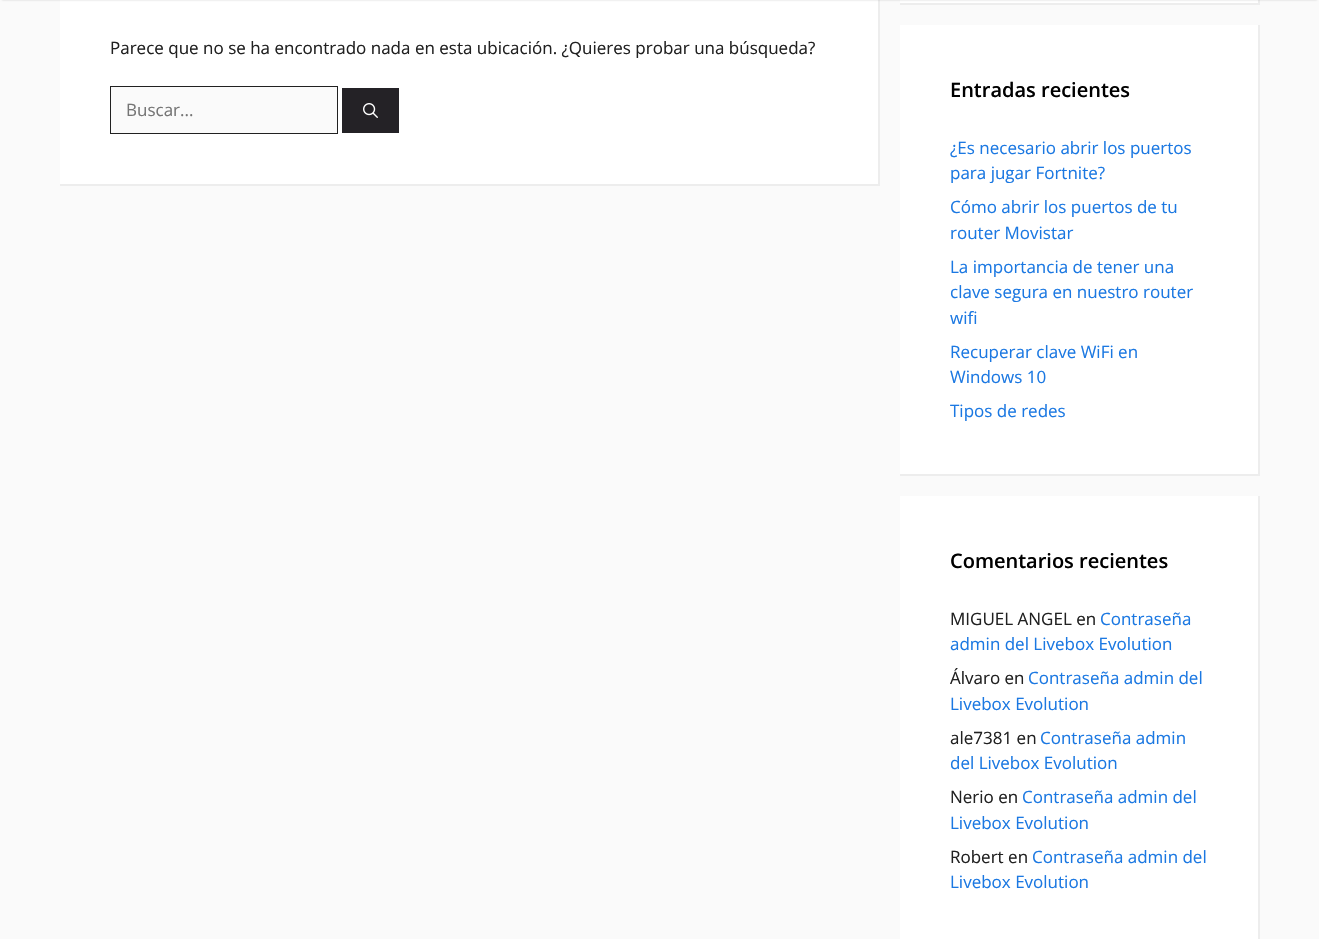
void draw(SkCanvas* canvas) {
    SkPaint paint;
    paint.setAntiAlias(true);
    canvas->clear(0xFFFAFAFA);
    paint.setColor(0xFFFFFFFF);
    canvas->drawRect(SkRect::MakeXYWH(60, 0, 820, 186), paint);
    paint.setColor(0xFFEDEDED);
    canvas->drawPath(SkPathBuilder().moveTo(880, -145).lineTo(880, 186).lineTo(878, 184).lineTo(878, -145).close().detach(), paint);
    paint.setColor(0xFFFFFFFF);
    canvas->drawRect(SkRect::MakeXYWH(900, 0, 360, 5), paint);
    paint.setColor(0xFFEDEDED);
    canvas->drawPath(SkPathBuilder().moveTo(1260, -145).lineTo(1260, 5).lineTo(1258, 3).lineTo(1258, -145).close().detach(), paint);
    paint.setColor(0x12000000);
    canvas->drawPath(SkPathBuilder().moveTo(1260, 5).lineTo(900, 5).lineTo(900, 3).lineTo(1258, 3).close().detach(), paint);
    paint.setColor(0x33000000);
    paint.setMaskFilter(SkMaskFilter::MakeBlur(kNormal_SkBlurStyle, 1));
    canvas->drawRect(SkRect::MakeXYWH(2, -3, 1315, 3), paint);
    paint.setMaskFilter(nullptr);
    paint.setColor(0x12000000);
    canvas->drawPath(SkPathBuilder().moveTo(880, 186).lineTo(60, 186).lineTo(60, 184).lineTo(878, 184).close().detach(), paint);
    SkFont font1(fontMgr->matchFamilyStyle("Open Sans", SkFontStyle::Normal()), 17);
    font1.setSubpixel(true);
    paint.setColor(0xFF212121);
    canvas->drawString("Parece que no se ha encontrado nada en esta ubicación. ¿Quieres probar una búsqueda?", 110, 54, font1, paint);
    paint.setColor(0xFFFAFAFA);
    canvas->drawRect(SkRect::MakeXYWH(110.5f, 86.5f, 227, 47), paint);
    paint.setStyle(SkPaint::kStroke_Style);
    paint.setStrokeWidth(1);
    paint.setColor(0xFF212121);
    canvas->drawRect(SkRect::MakeXYWH(110.5f, 86.5f, 227, 47), paint);
    paint.setStyle(SkPaint::kFill_Style);
    paint.setColor(0xFF757575);
    canvas->drawString("Buscar...", 126, 116, font1, paint);
    paint.setColor(0xFF242226);
    canvas->drawRect(SkRect::MakeXYWH(342, 88, 57, 45), paint);
    canvas->drawImageRect(SkImages::DeferredFromEncodedData(SkData::MakeFromFileName("img1.png")), SkRect::MakeXYWH(363, 103, 15, 15), SkSamplingOptions());
    paint.setColor(0xFFFFFFFF);
    canvas->drawRect(SkRect::MakeXYWH(900, 25, 360, 451), paint);
    paint.setColor(0xFFEDEDED);
    canvas->drawPath(SkPathBuilder().moveTo(1260, 25).lineTo(1260, 476).lineTo(1258, 474).lineTo(1258, 25).close().detach(), paint);
    paint.setColor(0x12000000);
    canvas->drawPath(SkPathBuilder().moveTo(1260, 476).lineTo(900, 476).lineTo(900, 474).lineTo(1258, 474).close().detach(), paint);
    SkFont font2(fontMgr->matchFamilyStyle("Open Sans", SkFontStyle(600, SkFontStyle::kNormal_Width, SkFontStyle::kUpright_Slant)), 20);
    font2.setSubpixel(true);
    paint.setColor(0xFF000000);
    canvas->drawString("Entradas recientes", 950, 97, font2, paint);
    paint.setColor(0xFF1B78E2);
    canvas->drawString("¿Es necesario abrir los puertos", 950, 154, font1, paint);
    canvas->drawString("para jugar Fortnite?", 950, 179, font1, paint);
    canvas->drawString("Cómo abrir los puertos de tu", 950, 213, font1, paint);
    canvas->drawString("router Movistar", 950, 239, font1, paint);
    canvas->drawString("La importancia de tener una", 950, 273, font1, paint);
    canvas->drawString("clave segura en nuestro router", 950, 298, font1, paint);
    canvas->drawString("wifi", 950, 324, font1, paint);
    canvas->drawString("Recuperar clave WiFi en", 950, 358, font1, paint);
    canvas->drawString("Windows 10", 950, 383, font1, paint);
    canvas->drawString("Tipos de redes", 950, 417, font1, paint);
    paint.setColor(0xFFFFFFFF);
    canvas->drawRect(SkRect::MakeXYWH(900, 496, 358, 443), paint);
    paint.setColor(0xFFEDEDED);
    canvas->drawPath(SkPathBuilder().moveTo(1260, 496).lineTo(1260, 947).lineTo(1258, 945).lineTo(1258, 496).close().detach(), paint);
    paint.setColor(0xFF000000);
    canvas->drawString("Comentarios recientes", 950, 568, font2, paint);
    paint.setColor(0xFF212121);
    canvas->drawString("MIGUEL ANGEL en", 950, 625, font1, paint);
    paint.setColor(0xFF1B78E2);
    canvas->drawString("Contraseña", 1100, 625, font1, paint);
    canvas->drawString("admin del Livebox Evolution", 950, 650, font1, paint);
    paint.setColor(0xFF212121);
    canvas->drawString("Álvaro en", 950, 684, font1, paint);
    paint.setColor(0xFF1B78E2);
    canvas->drawString("Contraseña admin del", 1028, 684, font1, paint);
    canvas->drawString("Livebox Evolution", 950, 710, font1, paint);
    paint.setColor(0xFF212121);
    canvas->drawString("ale7381 en", 950, 744, font1, paint);
    paint.setColor(0xFF1B78E2);
    canvas->drawString("Contraseña admin", 1040, 744, font1, paint);
    canvas->drawString("del Livebox Evolution", 950, 769, font1, paint);
    paint.setColor(0xFF212121);
    canvas->drawString("Nerio en", 950, 803, font1, paint);
    paint.setColor(0xFF1B78E2);
    canvas->drawString("Contraseña admin del", 1022, 803, font1, paint);
    canvas->drawString("Livebox Evolution", 950, 829, font1, paint);
    paint.setColor(0xFF212121);
    canvas->drawString("Robert en", 950, 863, font1, paint);
    paint.setColor(0xFF1B78E2);
    canvas->drawString("Contraseña admin del", 1032, 863, font1, paint);
    canvas->drawString("Livebox Evolution", 950, 888, font1, paint);
}
